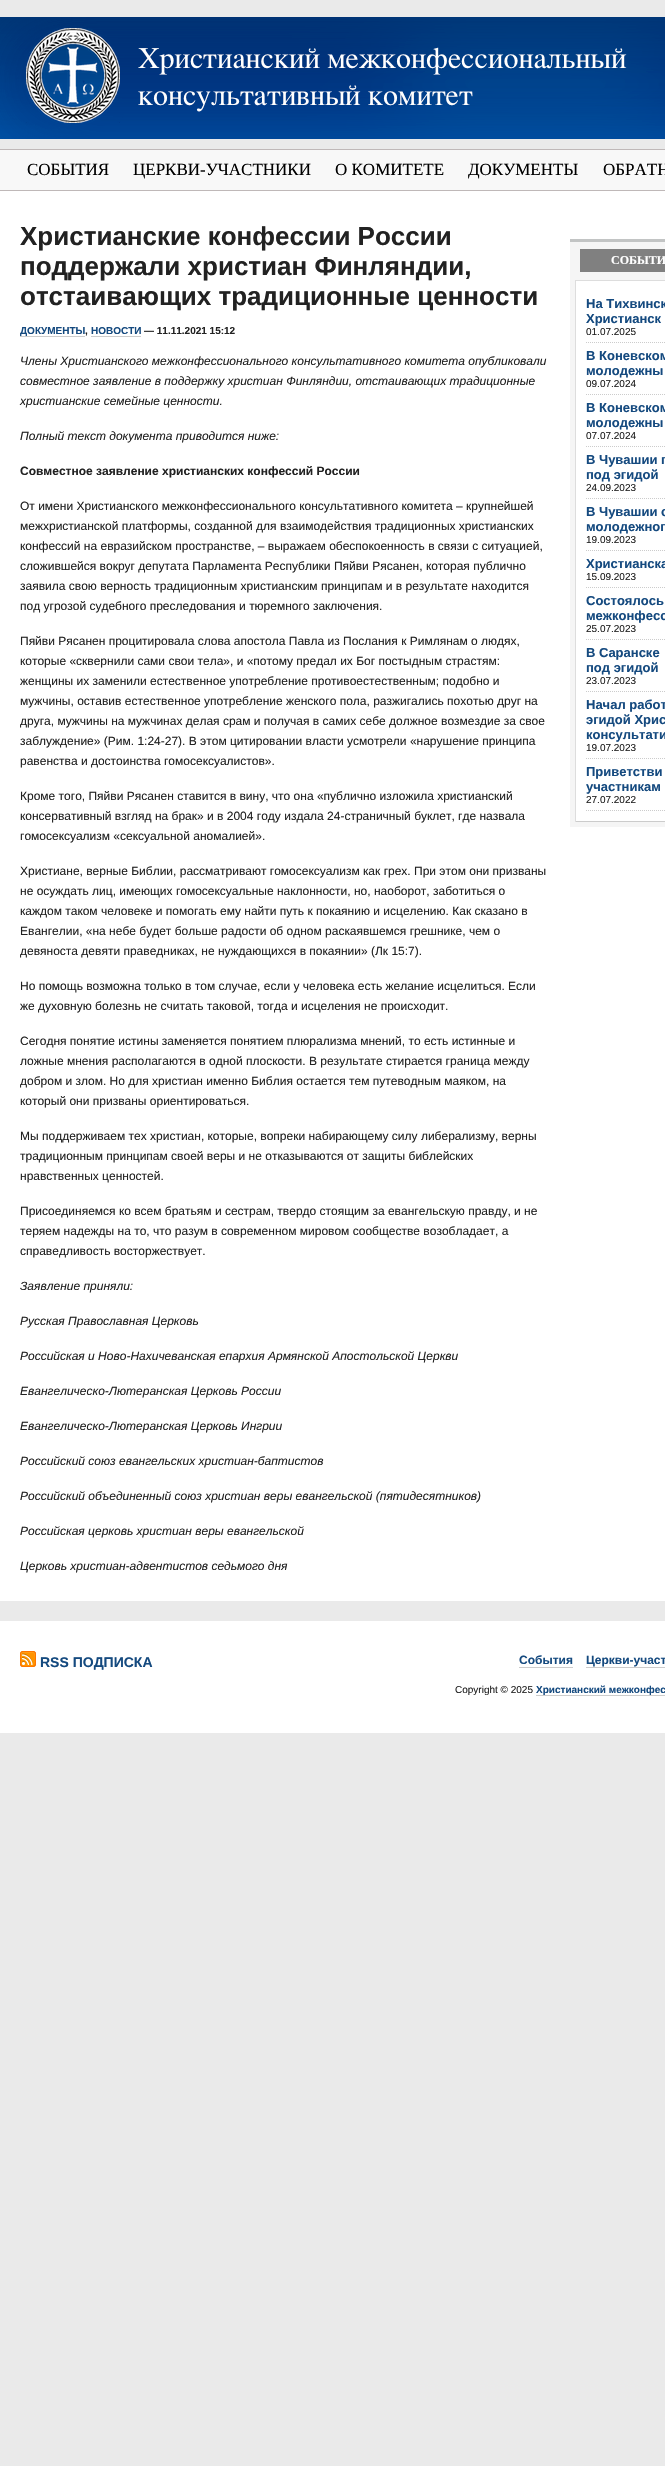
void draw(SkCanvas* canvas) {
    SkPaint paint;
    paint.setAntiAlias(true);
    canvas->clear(0xFFEAEAEA);
    canvas->drawImageRect(SkImages::DeferredFromEncodedData(SkData::MakeFromFileName("img1.png")), SkRect::MakeXYWH(0, 17, 665, 122), SkSamplingOptions());
    paint.setColor(0xFFF8F8F8);
    canvas->drawRect(SkRect::MakeXYWH(0, 150, 665, 40), paint);
    paint.setColor(0xFFBFB8B8);
    canvas->drawRect(SkRect::MakeXYWH(0, 149, 665, 1), paint);
    canvas->drawRect(SkRect::MakeXYWH(0, 190, 665, 1), paint);
    SkFont font1(fontMgr->matchFamilyStyle("Liberation Serif", SkFontStyle::Normal()), 17);
    font1.setSubpixel(true);
    paint.setColor(0xFF000000);
    canvas->drawString("СОБЫТИЯ", 27, 175, font1, paint);
    canvas->drawString("ЦЕРКВИ-УЧАСТНИКИ", 133, 175, font1, paint);
    canvas->drawString("О КОМИТЕТЕ", 335, 175, font1, paint);
    canvas->drawString("ДОКУМЕНТЫ", 468, 175, font1, paint);
    canvas->drawString("ОБРАТН", 603, 175, font1, paint);
    paint.setColor(0xFFFFFFFF);
    canvas->drawRect(SkRect::MakeXYWH(0, 191, 665, 1410), paint);
    SkFont font2(fontMgr->matchFamilyStyle("Liberation Sans", SkFontStyle::Bold()), 26);
    font2.setSubpixel(true);
    paint.setColor(0xFF222222);
    canvas->drawString("Христианские конфессии России", 20, 245, font2, paint);
    canvas->drawString("поддержали христиан Финляндии,", 20, 275, font2, paint);
    canvas->drawString("отстаивающих традиционные ценности", 20, 305, font2, paint);
    SkFont font3(fontMgr->matchFamilyStyle("Liberation Sans", SkFontStyle::Bold()), 10);
    font3.setSubpixel(true);
    paint.setColor(0xFF154A7F);
    canvas->drawString("ДОКУМЕНТЫ", 20, 334, font3, paint);
    paint.setColor(0xFF222222);
    canvas->drawString(",", 85, 334, font3, paint);
    paint.setColor(0xFFCCCCCC);
    canvas->drawRect(SkRect::MakeXYWH(20, 336, 65, 1), paint);
    canvas->drawRect(SkRect::MakeXYWH(91, 336, 50, 1), paint);
    paint.setColor(0xFF154A7F);
    canvas->drawString("НОВОСТИ", 91, 334, font3, paint);
    paint.setColor(0xFF222222);
    canvas->drawString("— 11.11.2021 15:12", 144, 334, font3, paint);
    SkFont font4(fontMgr->matchFamilyStyle("Liberation Sans", SkFontStyle::Italic()), 12);
    font4.setSubpixel(true);
    canvas->drawString("Члены Христианского межконфессионального консультативного комитета опубликовали", 20, 365, font4, paint);
    canvas->drawString("совместное заявление в поддержку христиан Финляндии, отстаивающих традиционные", 20, 385, font4, paint);
    canvas->drawString("христианские семейные ценности.", 20, 405, font4, paint);
    canvas->drawString("Полный текст документа приводится ниже:", 20, 440, font4, paint);
    SkFont font5(fontMgr->matchFamilyStyle("Liberation Sans", SkFontStyle::Bold()), 12);
    font5.setSubpixel(true);
    canvas->drawString("Совместное заявление христианских конфессий России", 20, 475, font5, paint);
    SkFont font6(fontMgr->matchFamilyStyle("Liberation Sans", SkFontStyle::Normal()), 12);
    font6.setSubpixel(true);
    canvas->drawString("От имени Христианского межконфессионального консультативного комитета – крупнейшей", 20, 510, font6, paint);
    canvas->drawString("межхристианской платформы, созданной для взаимодействия традиционных христианских", 20, 530, font6, paint);
    canvas->drawString("конфессий на евразийском пространстве, – выражаем обеспокоенность в связи с ситуацией,", 20, 550, font6, paint);
    canvas->drawString("сложившейся вокруг депутата Парламента Республики Пяйви Рясанен, которая публично", 20, 570, font6, paint);
    canvas->drawString("заявила свою верность традиционным христианским принципам и в результате находится", 20, 590, font6, paint);
    canvas->drawString("под угрозой судебного преследования и тюремного заключения.", 20, 610, font6, paint);
    canvas->drawString("Пяйви Рясанен процитировала слова апостола Павла из Послания к Римлянам о людях,", 20, 645, font6, paint);
    canvas->drawString("которые «сквернили сами свои тела», и «потому предал их Бог постыдным страстям:", 20, 665, font6, paint);
    canvas->drawString("женщины их заменили естественное употребление противоестественным; подобно и", 20, 685, font6, paint);
    canvas->drawString("мужчины, оставив естественное употребление женского пола, разжигались похотью друг на", 20, 705, font6, paint);
    canvas->drawString("друга, мужчины на мужчинах делая срам и получая в самих себе должное возмездие за свое", 20, 725, font6, paint);
    canvas->drawString("заблуждение» (Рим. 1:24-27). В этом цитировании власти усмотрели «нарушение принципа", 20, 745, font6, paint);
    canvas->drawString("равенства и достоинства гомосексуалистов».", 20, 765, font6, paint);
    canvas->drawString("Кроме того, Пяйви Рясанен ставится в вину, что она «публично изложила христианский", 20, 800, font6, paint);
    canvas->drawString("консервативный взгляд на брак» и в 2004 году издала 24-страничный буклет, где назвала", 20, 820, font6, paint);
    canvas->drawString("гомосексуализм «сексуальной аномалией».", 20, 840, font6, paint);
    canvas->drawString("Христиане, верные Библии, рассматривают гомосексуализм как грех. При этом они призваны", 20, 875, font6, paint);
    canvas->drawString("не осуждать лиц, имеющих гомосексуальные наклонности, но, наоборот, заботиться о", 20, 895, font6, paint);
    canvas->drawString("каждом таком человеке и помогать ему найти путь к покаянию и исцелению. Как сказано в", 20, 915, font6, paint);
    canvas->drawString("Евангелии, «на небе будет больше радости об одном раскаявшемся грешнике, чем о", 20, 935, font6, paint);
    canvas->drawString("девяноста девяти праведниках, не нуждающихся в покаянии» (Лк 15:7).", 20, 955, font6, paint);
    canvas->drawString("Но помощь возможна только в том случае, если у человека есть желание исцелиться. Если", 20, 990, font6, paint);
    canvas->drawString("же духовную болезнь не считать таковой, тогда и исцеления не происходит.", 20, 1010, font6, paint);
    canvas->drawString("Сегодня понятие истины заменяется понятием плюрализма мнений, то есть истинные и", 20, 1045, font6, paint);
    canvas->drawString("ложные мнения располагаются в одной плоскости. В результате стирается граница между", 20, 1065, font6, paint);
    canvas->drawString("добром и злом. Но для христиан именно Библия остается тем путеводным маяком, на", 20, 1085, font6, paint);
    canvas->drawString("который они призваны ориентироваться.", 20, 1105, font6, paint);
    canvas->drawString("Мы поддерживаем тех христиан, которые, вопреки набирающему силу либерализму, верны", 20, 1140, font6, paint);
    canvas->drawString("традиционным принципам своей веры и не отказываются от защиты библейских", 20, 1160, font6, paint);
    canvas->drawString("нравственных ценностей.", 20, 1180, font6, paint);
    canvas->drawString("Присоединяемся ко всем братьям и сестрам, твердо стоящим за евангельскую правду, и не", 20, 1215, font6, paint);
    canvas->drawString("теряем надежды на то, что разум в современном мировом сообществе возобладает, а", 20, 1235, font6, paint);
    canvas->drawString("справедливость восторжествует.", 20, 1255, font6, paint);
    canvas->drawString("Заявление приняли:", 20, 1290, font4, paint);
    canvas->drawString("Русская Православная Церковь", 20, 1325, font4, paint);
    canvas->drawString("Российская и Ново-Нахичеванская епархия Армянской Апостольской Церкви", 20, 1360, font4, paint);
    canvas->drawString("Евангелическо-Лютеранская Церковь России", 20, 1395, font4, paint);
    canvas->drawString("Евангелическо-Лютеранская Церковь Ингрии", 20, 1430, font4, paint);
    canvas->drawString("Российский союз евангельских христиан-баптистов", 20, 1465, font4, paint);
    canvas->drawString("Российский объединенный союз христиан веры евангельской (пятидесятников)", 20, 1500, font4, paint);
    canvas->drawString("Российская церковь христиан веры евангельской", 20, 1535, font4, paint);
    canvas->drawString("Церковь христиан-адвентистов седьмого дня", 20, 1570, font4, paint);
    paint.setColor(0xFFF5F5F5);
    canvas->drawRect(SkRect::MakeXYWH(570, 242, 95, 33), paint);
    paint.setColor(0xFFC2C4C4);
    canvas->drawRect(SkRect::MakeXYWH(570, 239, 95, 3), paint);
    paint.setColor(0xFF808080);
    canvas->drawRect(SkRect::MakeXYWH(580, 249, 85, 23), paint);
    SkFont font7(fontMgr->matchFamilyStyle("Liberation Serif", SkFontStyle::Bold()), 12);
    font7.setSubpixel(true);
    paint.setColor(0xFFFFFFFF);
    canvas->drawString("СОБЫТИ", 611, 264, font7, paint);
    paint.setStyle(SkPaint::kStroke_Style);
    paint.setStrokeWidth(5);
    paint.setColor(0xFFF5F5F5);
    canvas->drawRect(SkRect::MakeXYWH(572.5f, 277.5f, 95, 547), paint);
    paint.setStyle(SkPaint::kFill_Style);
    paint.setColor(0xFFDDDDDD);
    canvas->drawRect(SkRect::MakeXYWH(575, 280, 90, 1), paint);
    paint.setColor(0xFFCCCCCC);
    canvas->drawRect(SkRect::MakeXYWH(575, 821, 90, 1), paint);
    paint.setColor(0xFFDDDDDD);
    canvas->drawRect(SkRect::MakeXYWH(575, 280, 1, 542), paint);
    paint.setStyle(SkPaint::kStroke_Style);
    paint.setStrokeWidth(1);
    paint.setColor(0xFFCCCCCC);
    paint.setPathEffect(SkDashPathEffect::Make({{1, 1}}, 0));
    canvas->drawPath(SkPathBuilder().moveTo(586, 342.5f).lineTo(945, 342.5f).detach(), paint);
    paint.setPathEffect(nullptr);
    SkFont font8(fontMgr->matchFamilyStyle("Liberation Sans", SkFontStyle::Bold()), 13);
    font8.setSubpixel(true);
    paint.setStyle(SkPaint::kFill_Style);
    paint.setColor(0xFF154A7F);
    canvas->drawString("На Тихвинск", 586, 308, font8, paint);
    canvas->drawString("Христианск", 586, 323, font8, paint);
    SkFont font9(fontMgr->matchFamilyStyle("Liberation Sans", SkFontStyle::Normal()), 10);
    font9.setSubpixel(true);
    paint.setColor(0xFF222222);
    canvas->drawString("01.07.2025", 586, 335, font9, paint);
    paint.setStyle(SkPaint::kStroke_Style);
    paint.setColor(0xFFCCCCCC);
    paint.setPathEffect(SkDashPathEffect::Make({{1, 1}}, 0));
    canvas->drawPath(SkPathBuilder().moveTo(586, 394.5f).lineTo(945, 394.5f).detach(), paint);
    paint.setPathEffect(nullptr);
    paint.setStyle(SkPaint::kFill_Style);
    paint.setColor(0xFF154A7F);
    canvas->drawString("В Коневском", 586, 360, font8, paint);
    canvas->drawString("молодежны", 586, 375, font8, paint);
    paint.setColor(0xFF222222);
    canvas->drawString("09.07.2024", 586, 387, font9, paint);
    paint.setStyle(SkPaint::kStroke_Style);
    paint.setColor(0xFFCCCCCC);
    paint.setPathEffect(SkDashPathEffect::Make({{1, 1}}, 0));
    canvas->drawPath(SkPathBuilder().moveTo(586, 446.5f).lineTo(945, 446.5f).detach(), paint);
    paint.setPathEffect(nullptr);
    paint.setStyle(SkPaint::kFill_Style);
    paint.setColor(0xFF154A7F);
    canvas->drawString("В Коневском", 586, 412, font8, paint);
    canvas->drawString("молодежны", 586, 427, font8, paint);
    paint.setColor(0xFF222222);
    canvas->drawString("07.07.2024", 586, 439, font9, paint);
    paint.setStyle(SkPaint::kStroke_Style);
    paint.setColor(0xFFCCCCCC);
    paint.setPathEffect(SkDashPathEffect::Make({{1, 1}}, 0));
    canvas->drawPath(SkPathBuilder().moveTo(586, 498.5f).lineTo(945, 498.5f).detach(), paint);
    paint.setPathEffect(nullptr);
    paint.setStyle(SkPaint::kFill_Style);
    paint.setColor(0xFF154A7F);
    canvas->drawString("В Чувашии п", 586, 464, font8, paint);
    canvas->drawString("под эгидой", 586, 479, font8, paint);
    paint.setColor(0xFF222222);
    canvas->drawString("24.09.2023", 586, 491, font9, paint);
    paint.setStyle(SkPaint::kStroke_Style);
    paint.setColor(0xFFCCCCCC);
    paint.setPathEffect(SkDashPathEffect::Make({{1, 1}}, 0));
    canvas->drawPath(SkPathBuilder().moveTo(586, 550.5f).lineTo(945, 550.5f).detach(), paint);
    paint.setPathEffect(nullptr);
    paint.setStyle(SkPaint::kFill_Style);
    paint.setColor(0xFF154A7F);
    canvas->drawString("В Чувашии с", 586, 516, font8, paint);
    canvas->drawString("молодежног", 586, 531, font8, paint);
    paint.setColor(0xFF222222);
    canvas->drawString("19.09.2023", 586, 543, font9, paint);
    paint.setStyle(SkPaint::kStroke_Style);
    paint.setColor(0xFFCCCCCC);
    paint.setPathEffect(SkDashPathEffect::Make({{1, 1}}, 0));
    canvas->drawPath(SkPathBuilder().moveTo(586, 587.5f).lineTo(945, 587.5f).detach(), paint);
    paint.setPathEffect(nullptr);
    paint.setStyle(SkPaint::kFill_Style);
    paint.setColor(0xFF154A7F);
    canvas->drawString("Христианска", 586, 568, font8, paint);
    paint.setColor(0xFF222222);
    canvas->drawString("15.09.2023", 586, 580, font9, paint);
    paint.setStyle(SkPaint::kStroke_Style);
    paint.setColor(0xFFCCCCCC);
    paint.setPathEffect(SkDashPathEffect::Make({{1, 1}}, 0));
    canvas->drawPath(SkPathBuilder().moveTo(586, 639.5f).lineTo(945, 639.5f).detach(), paint);
    paint.setPathEffect(nullptr);
    paint.setStyle(SkPaint::kFill_Style);
    paint.setColor(0xFF154A7F);
    canvas->drawString("Состоялось", 586, 605, font8, paint);
    canvas->drawString("межконфесс", 586, 620, font8, paint);
    paint.setColor(0xFF222222);
    canvas->drawString("25.07.2023", 586, 632, font9, paint);
    paint.setStyle(SkPaint::kStroke_Style);
    paint.setColor(0xFFCCCCCC);
    paint.setPathEffect(SkDashPathEffect::Make({{1, 1}}, 0));
    canvas->drawPath(SkPathBuilder().moveTo(586, 691.5f).lineTo(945, 691.5f).detach(), paint);
    paint.setPathEffect(nullptr);
    paint.setStyle(SkPaint::kFill_Style);
    paint.setColor(0xFF154A7F);
    canvas->drawString("В Саранске", 586, 657, font8, paint);
    canvas->drawString("под эгидой", 586, 672, font8, paint);
    paint.setColor(0xFF222222);
    canvas->drawString("23.07.2023", 586, 684, font9, paint);
    paint.setStyle(SkPaint::kStroke_Style);
    paint.setColor(0xFFCCCCCC);
    paint.setPathEffect(SkDashPathEffect::Make({{1, 1}}, 0));
    canvas->drawPath(SkPathBuilder().moveTo(586, 758.5f).lineTo(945, 758.5f).detach(), paint);
    paint.setPathEffect(nullptr);
    paint.setStyle(SkPaint::kFill_Style);
    paint.setColor(0xFF154A7F);
    canvas->drawString("Начал работ", 586, 709, font8, paint);
    canvas->drawString("эгидой Хрис", 586, 724, font8, paint);
    canvas->drawString("консультати", 586, 739, font8, paint);
    paint.setColor(0xFF222222);
    canvas->drawString("19.07.2023", 586, 751, font9, paint);
    paint.setStyle(SkPaint::kStroke_Style);
    paint.setColor(0xFFCCCCCC);
    paint.setPathEffect(SkDashPathEffect::Make({{1, 1}}, 0));
    canvas->drawPath(SkPathBuilder().moveTo(586, 810.5f).lineTo(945, 810.5f).detach(), paint);
    paint.setPathEffect(nullptr);
    paint.setStyle(SkPaint::kFill_Style);
    paint.setColor(0xFF154A7F);
    canvas->drawString("Приветстви", 586, 776, font8, paint);
    canvas->drawString("участникам", 586, 791, font8, paint);
    paint.setColor(0xFF222222);
    canvas->drawString("27.07.2022", 586, 803, font9, paint);
    paint.setColor(0xFFFFFFFF);
    canvas->drawRect(SkRect::MakeXYWH(0, 1621, 665, 112), paint);
    canvas->drawImageRect(SkImages::DeferredFromEncodedData(SkData::MakeFromFileName("img2.png")), SkRect::MakeXYWH(20, 1651, 16, 16), SkSamplingOptions());
    SkFont font10(fontMgr->matchFamilyStyle("Liberation Sans", SkFontStyle::Bold()), 14);
    font10.setSubpixel(true);
    paint.setColor(0xFF154A7F);
    canvas->drawString("RSS ПОДПИСКА", 40, 1667, font10, paint);
    canvas->drawString("События", 519, 1664, font5, paint);
    paint.setColor(0xFFCCCCCC);
    canvas->drawRect(SkRect::MakeXYWH(519, 1667, 54, 1), paint);
    paint.setColor(0xFF154A7F);
    canvas->drawString("Церкви-участ", 586, 1664, font5, paint);
    paint.setColor(0xFFCCCCCC);
    canvas->drawRect(SkRect::MakeXYWH(586, 1667, 79, 1), paint);
    paint.setColor(0xFF222222);
    canvas->drawString("Copyright © 2025", 455, 1693, font9, paint);
    paint.setColor(0xFFCCCCCC);
    canvas->drawRect(SkRect::MakeXYWH(536, 1695, 129, 1), paint);
    paint.setColor(0xFF154A7F);
    canvas->drawString("Христианский межконфес", 536, 1693, font3, paint);
}
